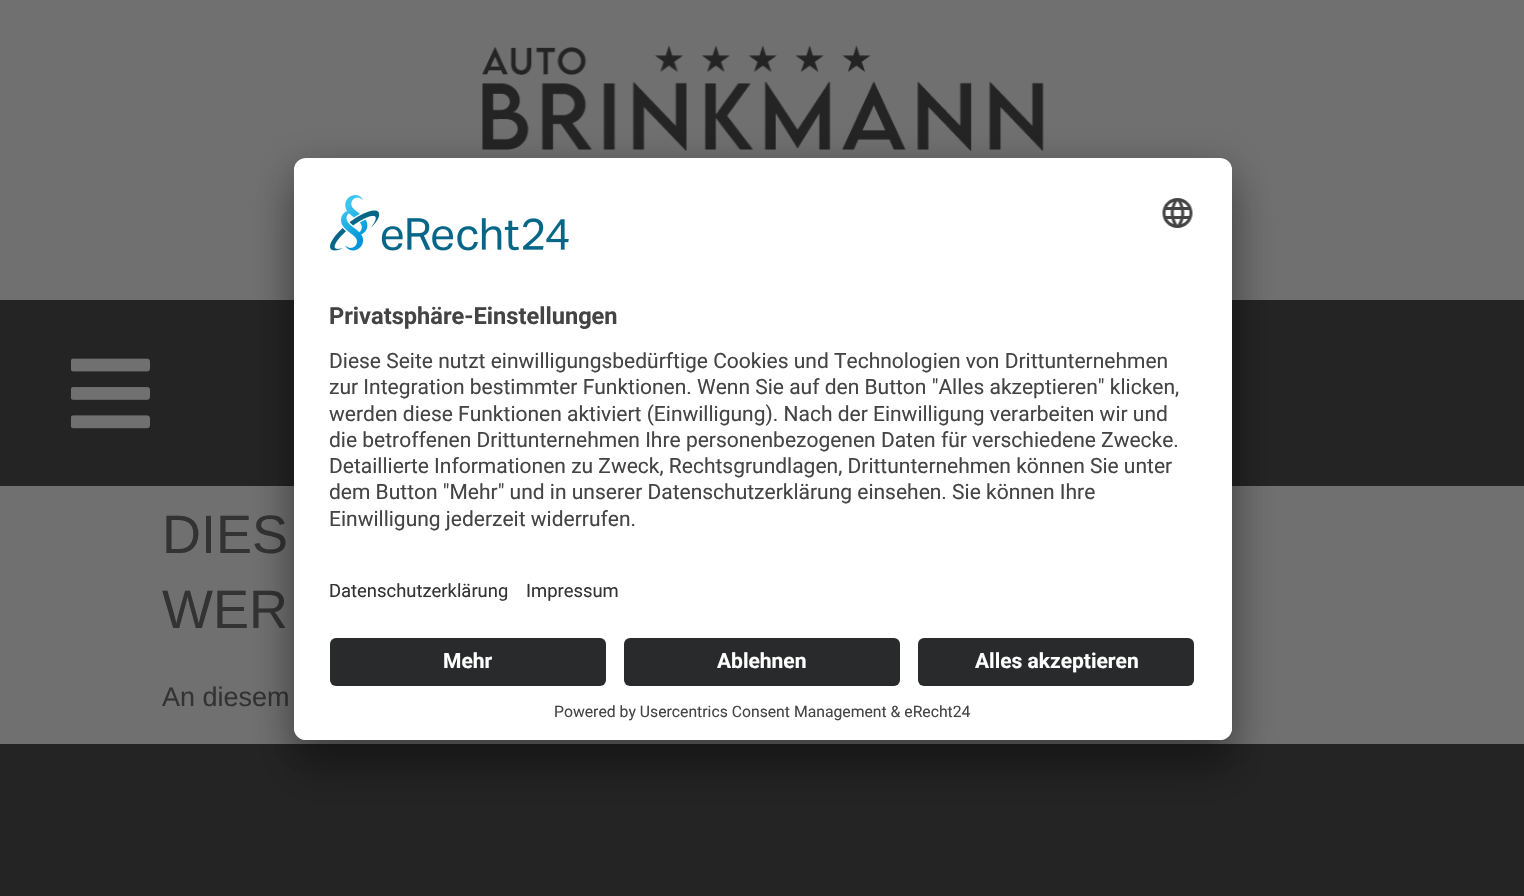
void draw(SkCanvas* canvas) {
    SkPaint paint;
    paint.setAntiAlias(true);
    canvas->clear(0xFF707070);
    canvas->drawImageRect(SkImages::DeferredFromEncodedData(SkData::MakeFromFileName("img1.png")), SkRect::MakeXYWH(482, 45, 562, 106), SkSamplingOptions());
    paint.setColor(0xFF242424);
    canvas->drawRect(SkRect::MakeXYWH(0, 300, 1524, 186), paint);
    canvas->drawImageRect(SkImages::DeferredFromEncodedData(SkData::MakeFromFileName("img2.png")), SkRect::MakeXYWH(71, 358, 79, 71), SkSamplingOptions());
    SkFont font1(fontMgr->matchFamilyStyle("Liberation Sans", SkFontStyle::Normal()), 54);
    font1.setSubpixel(true);
    paint.setColor(0xFF333333);
    canvas->drawString("DIES", 162, 553, font1, paint);
    canvas->drawString("WER", 162, 628, font1, paint);
    SkFont font2(fontMgr->matchFamilyStyle("Liberation Sans", SkFontStyle::Normal()), 27);
    font2.setSubpixel(true);
    canvas->drawString("An diesem", 162, 706, font2, paint);
    paint.setColor(0xFF242424);
    canvas->drawRect(SkRect::MakeXYWH(0, 744, 1524, 152), paint);
    paint.setColor(0x4D000000);
    paint.setMaskFilter(SkMaskFilter::MakeBlur(kNormal_SkBlurStyle, 21));
    canvas->drawRoundRect(SkRect::MakeXYWH(294, 188, 938, 582), 12, 12, paint);
    paint.setMaskFilter(nullptr);
    paint.setColor(0x38000000);
    paint.setMaskFilter(SkMaskFilter::MakeBlur(kNormal_SkBlurStyle, 19.5f));
    canvas->drawRoundRect(SkRect::MakeXYWH(294, 165, 938, 582), 12, 12, paint);
    paint.setMaskFilter(nullptr);
    paint.setColor(0xFFFFFFFF);
    canvas->drawRoundRect(SkRect::MakeXYWH(294, 158, 938, 582), 12, 12, paint);
    canvas->save();
    canvas->clipPath(SkPathBuilder().moveTo(306, 158).lineTo(1220, 158).cubicTo(1226.5f, 158, 1232, 163.5f, 1232, 170).lineTo(1232, 728).cubicTo(1232, 734.5f, 1226.5f, 740, 1220, 740).lineTo(306, 740).cubicTo(299.5f, 740, 294, 734.5f, 294, 728).lineTo(294, 170).cubicTo(294, 163.5f, 299.5f, 158, 306, 158).close().detach(), true);
    canvas->clipPath(SkPathBuilder().moveTo(306, 158).lineTo(1220, 158).cubicTo(1226.5f, 158, 1232, 163.5f, 1232, 170).lineTo(1232, 626).lineTo(294, 626).lineTo(294, 170).cubicTo(294, 163.5f, 299.5f, 158, 306, 158).close().detach(), true);
    canvas->drawRect(SkRect::MakeXYWH(294, 159, 938, 467), paint);
    canvas->restore();
    canvas->drawImageRect(SkImages::DeferredFromEncodedData(SkData::MakeFromFileName("img3.png")), SkRect::MakeXYWH(330, 195, 239, 56), SkSamplingOptions());
    canvas->drawImageRect(SkImages::DeferredFromEncodedData(SkData::MakeFromFileName("img4.png")), SkRect::MakeXYWH(1162, 198, 31, 30), SkSamplingOptions());
    SkFont font3(fontMgr->matchFamilyStyle("Roboto", SkFontStyle::Bold()), 23.6f);
    font3.setSubpixel(true);
    paint.setColor(0xFF444444);
    canvas->drawString("Privatsphäre-Einstellungen", 329, 324, font3, paint);
    SkFont font4(fontMgr->matchFamilyStyle("Roboto", SkFontStyle::Normal()), 21);
    font4.setSubpixel(true);
    canvas->drawString("Diese Seite nutzt einwilligungsbedürftige Cookies und Technologien von Drittunternehmen", 329, 368, font4, paint);
    canvas->drawString("zur Integration bestimmter Funktionen. Wenn Sie auf den Button \"Alles akzeptieren\" klicken,", 329, 394, font4, paint);
    canvas->drawString("werden diese Funktionen aktiviert (Einwilligung). Nach der Einwilligung verarbeiten wir und", 329, 421, font4, paint);
    canvas->drawString("die betroffenen Drittunternehmen Ihre personenbezogenen Daten für verschiedene Zwecke.", 329, 447, font4, paint);
    canvas->drawString("Detaillierte Informationen zu Zweck, Rechtsgrundlagen, Drittunternehmen können Sie unter", 329, 473, font4, paint);
    canvas->drawString("dem Button \"Mehr\" und in unserer Datenschutzerklärung einsehen. Sie können Ihre", 329, 499, font4, paint);
    canvas->drawString("Einwilligung jederzeit widerrufen.", 329, 526, font4, paint);
    SkFont font5(fontMgr->matchFamilyStyle("Roboto", SkFontStyle::Normal()), 18.4f);
    font5.setSubpixel(true);
    paint.setColor(0xFF333333);
    canvas->drawString("Datenschutzerklärung", 329, 597, font5, paint);
    canvas->drawString("Impressum", 526, 597, font5, paint);
    paint.setColor(0xFFFFFFFF);
    canvas->drawPath(SkPathBuilder().moveTo(294, 626).lineTo(1232, 626).lineTo(1232, 728).cubicTo(1232, 734.5f, 1226.5f, 740, 1220, 740).lineTo(306, 740).cubicTo(299.5f, 740, 294, 734.5f, 294, 728).close().detach(), paint);
    paint.setColor(0xFF292A2B);
    canvas->drawRoundRect(SkRect::MakeXYWH(330, 638, 276, 48), 6, 6, paint);
    SkFont font6(fontMgr->matchFamilyStyle("Roboto", SkFontStyle::Bold()), 21);
    font6.setSubpixel(true);
    paint.setColor(0xFFFFFFFF);
    canvas->drawString("Mehr", 443, 668, font6, paint);
    paint.setColor(0xFF292A2B);
    canvas->drawRoundRect(SkRect::MakeXYWH(624, 638, 276, 48), 6, 6, paint);
    paint.setColor(0xFFFFFFFF);
    canvas->drawString("Ablehnen", 717, 668, font6, paint);
    paint.setColor(0xFF292A2B);
    canvas->drawRoundRect(SkRect::MakeXYWH(918, 638, 276, 48), 6, 6, paint);
    paint.setColor(0xFFFFFFFF);
    canvas->drawString("Alles akzeptieren", 975, 668, font6, paint);
    SkFont font7(fontMgr->matchFamilyStyle("Roboto", SkFontStyle::Normal()), 15.75f);
    font7.setSubpixel(true);
    paint.setColor(0xFF444444);
    canvas->drawString("Powered by Usercentrics Consent Management & eRecht24", 554, 717, font7, paint);
}
